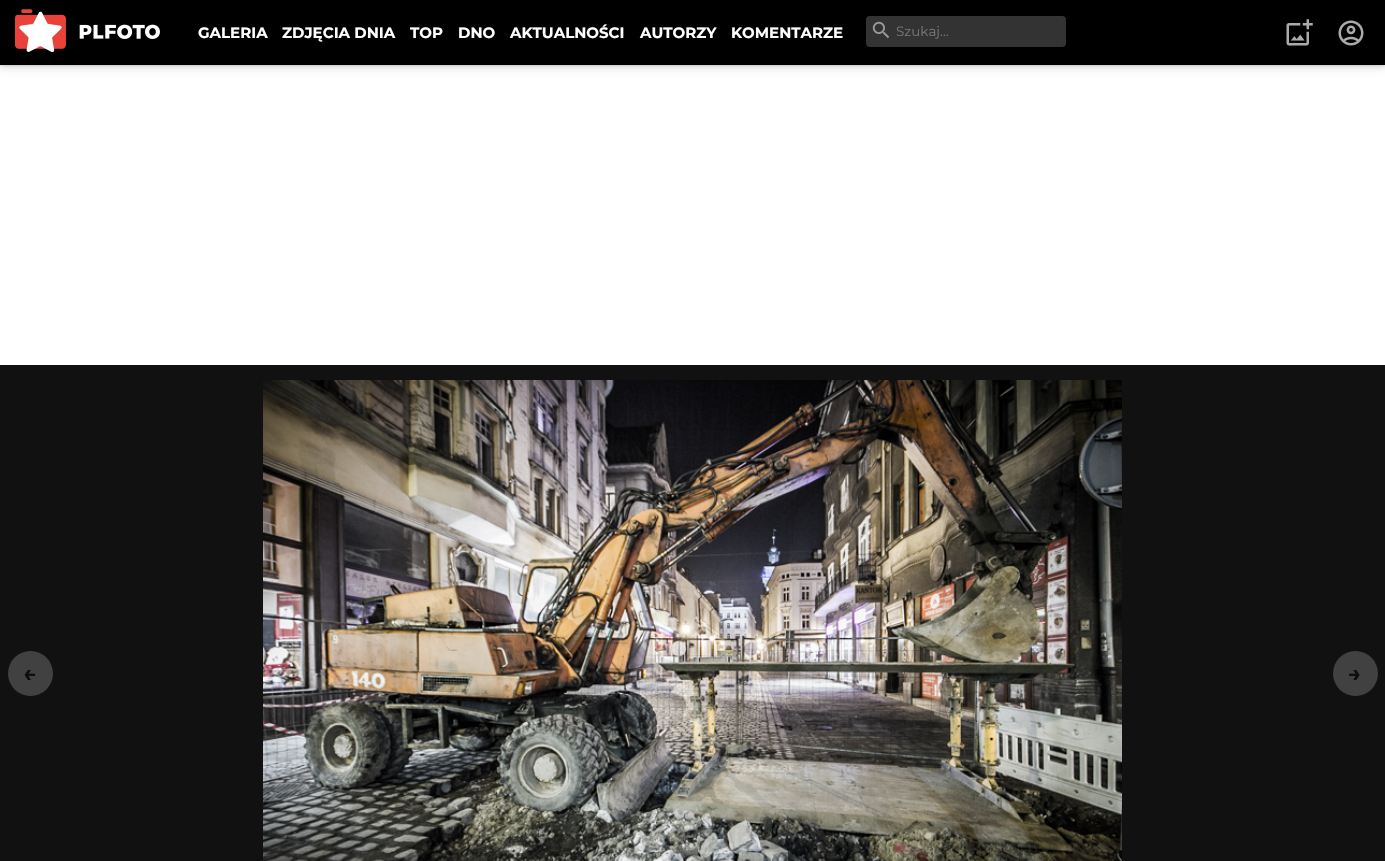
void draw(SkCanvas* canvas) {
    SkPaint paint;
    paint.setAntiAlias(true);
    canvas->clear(0xFFFFFFFF);
    paint.setColor(0x1C000000);
    paint.setMaskFilter(SkMaskFilter::MakeBlur(kNormal_SkBlurStyle, 1));
    canvas->drawRect(SkRect::MakeXYWH(0, 1, 1385, 65), paint);
    paint.setMaskFilter(nullptr);
    paint.setColor(0x21000000);
    paint.setMaskFilter(SkMaskFilter::MakeBlur(kNormal_SkBlurStyle, 3.5f));
    canvas->drawRect(SkRect::MakeXYWH(0, 3, 1385, 65), paint);
    paint.setMaskFilter(nullptr);
    paint.setColor(0xFF000000);
    canvas->drawRect(SkRect::MakeXYWH(0, 0, 1385, 65), paint);
    canvas->drawImageRect(SkImages::DeferredFromEncodedData(SkData::MakeFromFileName("img1.png")), SkRect::MakeXYWH(15, 9, 145, 43), SkSamplingOptions());
    SkFont font1(fontMgr->matchFamilyStyle("Montserrat", SkFontStyle::Bold()), 15);
    font1.setSubpixel(true);
    paint.setColor(0xFFFFFFFF);
    canvas->drawString("GALERIA", 198, 38, font1, paint);
    canvas->drawString("ZDJĘCIA DNIA", 282, 38, font1, paint);
    canvas->drawString("TOP", 410, 38, font1, paint);
    canvas->drawString("DNO", 458, 38, font1, paint);
    canvas->drawString("AKTUALNOŚCI", 510, 38, font1, paint);
    canvas->drawString("AUTORZY", 640, 38, font1, paint);
    canvas->drawString("KOMENTARZE", 731, 38, font1, paint);
    paint.setColor(0xFF333333);
    canvas->drawRoundRect(SkRect::MakeXYWH(866, 16, 200, 31), 4, 4, paint);
    canvas->drawImageRect(SkImages::DeferredFromEncodedData(SkData::MakeFromFileName("img2.png")), SkRect::MakeXYWH(872, 21, 18, 18), SkSamplingOptions());
    SkFont font2(fontMgr->matchFamilyStyle("Montserrat", SkFontStyle::Normal()), 13.5f);
    font2.setSubpixel(true);
    paint.setColor(0xFF757575);
    canvas->drawString("Szukaj...", 896, 36, font2, paint);
    canvas->drawImageRect(SkImages::DeferredFromEncodedData(SkData::MakeFromFileName("img3.png")), SkRect::MakeXYWH(1286, 19, 27, 27), SkSamplingOptions());
    canvas->drawImageRect(SkImages::DeferredFromEncodedData(SkData::MakeFromFileName("img4.png")), SkRect::MakeXYWH(1338, 20, 26, 26), SkSamplingOptions());
    paint.setColor(0xFF111111);
    canvas->drawRect(SkRect::MakeXYWH(0, 365, 1385, 496), paint);
    paint.setColor(0xFF414141);
    canvas->drawCircle(30.5f, 673.5f, 22.5f, paint);
    SkFont font3(fontMgr->matchFamilyStyle("Montserrat", SkFontStyle::Bold()), 22);
    font3.setSubpixel(true);
    paint.setColor(0xFF0E0E0E);
    canvas->drawString("←", 23, 681, font3, paint);
    canvas->drawImageRect(SkImages::DeferredFromEncodedData(SkData::MakeFromFileName("img5.png")), SkRect::MakeXYWH(263, 380, 859, 481), SkSamplingOptions());
    paint.setColor(0xFF414141);
    canvas->drawCircle(1355.5f, 673.5f, 22.5f, paint);
    paint.setColor(0xFF0E0E0E);
    canvas->drawString("→", 1348, 681, font3, paint);
}
